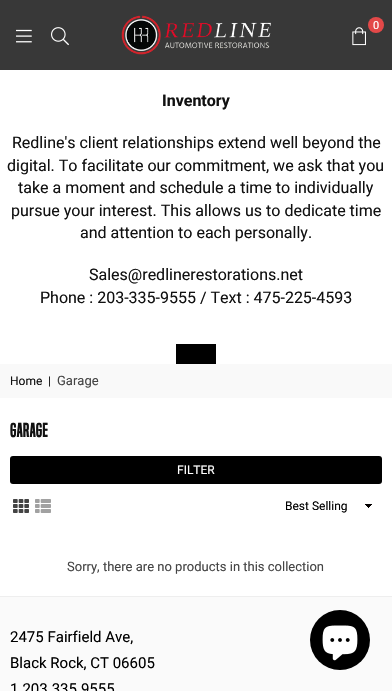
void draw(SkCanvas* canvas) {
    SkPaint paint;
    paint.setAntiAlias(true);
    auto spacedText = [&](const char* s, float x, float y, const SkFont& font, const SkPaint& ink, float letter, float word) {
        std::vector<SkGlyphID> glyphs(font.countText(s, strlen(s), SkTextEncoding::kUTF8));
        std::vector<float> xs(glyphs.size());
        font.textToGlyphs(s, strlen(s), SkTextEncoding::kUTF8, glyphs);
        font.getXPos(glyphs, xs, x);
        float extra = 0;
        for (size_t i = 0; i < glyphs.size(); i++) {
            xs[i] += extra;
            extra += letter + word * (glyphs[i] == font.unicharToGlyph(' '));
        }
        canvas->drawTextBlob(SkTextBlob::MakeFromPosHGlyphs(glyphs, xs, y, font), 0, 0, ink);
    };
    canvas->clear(0xFFFFFFFF);
    paint.setColor(0xFF383838);
    canvas->drawRect(SkRect::MakeXYWH(0, 0, 392, 70), paint);
    canvas->drawImageRect(SkImages::DeferredFromEncodedData(SkData::MakeFromFileName("img1.png")), SkRect::MakeXYWH(121, 15, 150, 40), SkSamplingOptions());
    paint.setColor(0xFFE34848);
    canvas->drawCircle(376, 25, 8, paint);
    SkFont font1(fontMgr->matchFamilyStyle("Roboto", SkFontStyle::Normal()), 11);
    font1.setSubpixel(true);
    paint.setColor(0xFFFFFFFF);
    canvas->drawString("0", 373, 29, font1, paint);
    canvas->drawImageRect(SkImages::DeferredFromEncodedData(SkData::MakeFromFileName("img2.png")), SkRect::MakeXYWH(352, 27, 14, 19), SkSamplingOptions());
    canvas->drawImageRect(SkImages::DeferredFromEncodedData(SkData::MakeFromFileName("img3.png")), SkRect::MakeXYWH(16, 29, 16, 14), SkSamplingOptions());
    canvas->drawImageRect(SkImages::DeferredFromEncodedData(SkData::MakeFromFileName("img4.png")), SkRect::MakeXYWH(51, 27, 18, 19), SkSamplingOptions());
    SkFont font2(fontMgr->matchFamilyStyle("Roboto", SkFontStyle::Bold()), 16);
    font2.setSubpixel(true);
    paint.setColor(0xFF111111);
    canvas->drawString("Inventory", 162, 106, font2, paint);
    SkFont font3(fontMgr->matchFamilyStyle("Roboto", SkFontStyle::Normal()), 16);
    font3.setSubpixel(true);
    canvas->drawString("Redline's client relationships extend well beyond the", 12, 148, font3, paint);
    canvas->drawString("digital. To facilitate our commitment, we ask that you", 7, 171, font3, paint);
    canvas->drawString("take a moment and schedule a time to individually", 18, 193, font3, paint);
    canvas->drawString("pursue your interest. This allows us to dedicate time", 11, 216, font3, paint);
    canvas->drawString("and attention to each personally.", 80, 238, font3, paint);
    canvas->drawString("Sales@redlinerestorations.net", 89, 280, font3, paint);
    canvas->drawString("Phone : 203-335-9555 / Text : 475-225-4593", 40, 303, font3, paint);
    paint.setColor(0xFF000000);
    canvas->drawRect(SkRect::MakeXYWH(176, 344, 40, 20), paint);
    paint.setColor(0xFFF9F9F9);
    canvas->drawRect(SkRect::MakeXYWH(0, 364, 392, 34), paint);
    SkFont font4(fontMgr->matchFamilyStyle("Roboto", SkFontStyle::Normal()), 12);
    font4.setSubpixel(true);
    paint.setColor(0xFF111111);
    canvas->drawString("Home", 10, 385, font4, paint);
    canvas->drawString("|", 48, 385, font4, paint);
    SkFont font5(fontMgr->matchFamilyStyle("Roboto", SkFontStyle::Normal()), 13);
    font5.setSubpixel(true);
    paint.setColor(0xFF444444);
    canvas->drawString("Garage", 57, 385, font5, paint);
    SkFont font6(fontMgr->matchFamilyStyle("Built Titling", SkFontStyle::Bold()), 18);
    font6.setSubpixel(true);
    paint.setColor(0xFF111111);
    spacedText("GARAGE", 10, 437, font6, paint, 0.5f, 0);
    paint.setColor(0xFF000000);
    canvas->drawRoundRect(SkRect::MakeXYWH(10, 456, 372, 28), 3, 3, paint);
    paint.setColor(0xFFFFFFFF);
    canvas->drawString("FILTER", 177, 474, font4, paint);
    canvas->drawImageRect(SkImages::DeferredFromEncodedData(SkData::MakeFromFileName("img5.png")), SkRect::MakeXYWH(13, 499, 16, 14), SkSamplingOptions());
    canvas->drawImageRect(SkImages::DeferredFromEncodedData(SkData::MakeFromFileName("img6.png")), SkRect::MakeXYWH(35, 499, 16, 14), SkSamplingOptions());
    canvas->drawImageRect(SkImages::DeferredFromEncodedData(SkData::MakeFromFileName("img7.png")), SkRect::MakeXYWH(365, 504, 7, 4), SkSamplingOptions());
    paint.setColor(0xFF000000);
    canvas->drawString("Best Selling", 285, 510, font4, paint);
    paint.setColor(0xFF444444);
    canvas->drawString("Sorry, there are no products in this collection", 67, 571, font5, paint);
    paint.setColor(0xFFFAFAFA);
    canvas->drawRect(SkRect::MakeXYWH(0, 597, 392, 94), paint);
    paint.setColor(0xFFEEEEEE);
    canvas->drawRect(SkRect::MakeXYWH(0, 596, 392, 1), paint);
    SkFont font7(fontMgr->matchFamilyStyle("Roboto", SkFontStyle::Normal()), 15);
    font7.setSubpixel(true);
    paint.setColor(0xFF000000);
    canvas->drawString("2475 Fairfield Ave,", 10, 642, font7, paint);
    canvas->drawString("Black Rock, CT 06605", 10, 668, font7, paint);
    canvas->drawString("1.203.335.9555", 10, 694, font7, paint);
    canvas->drawCircle(340, 640, 30, paint);
    canvas->drawImageRect(SkImages::DeferredFromEncodedData(SkData::MakeFromFileName("img8.png")), SkRect::MakeXYWH(322, 625, 36, 36), SkSamplingOptions());
}
